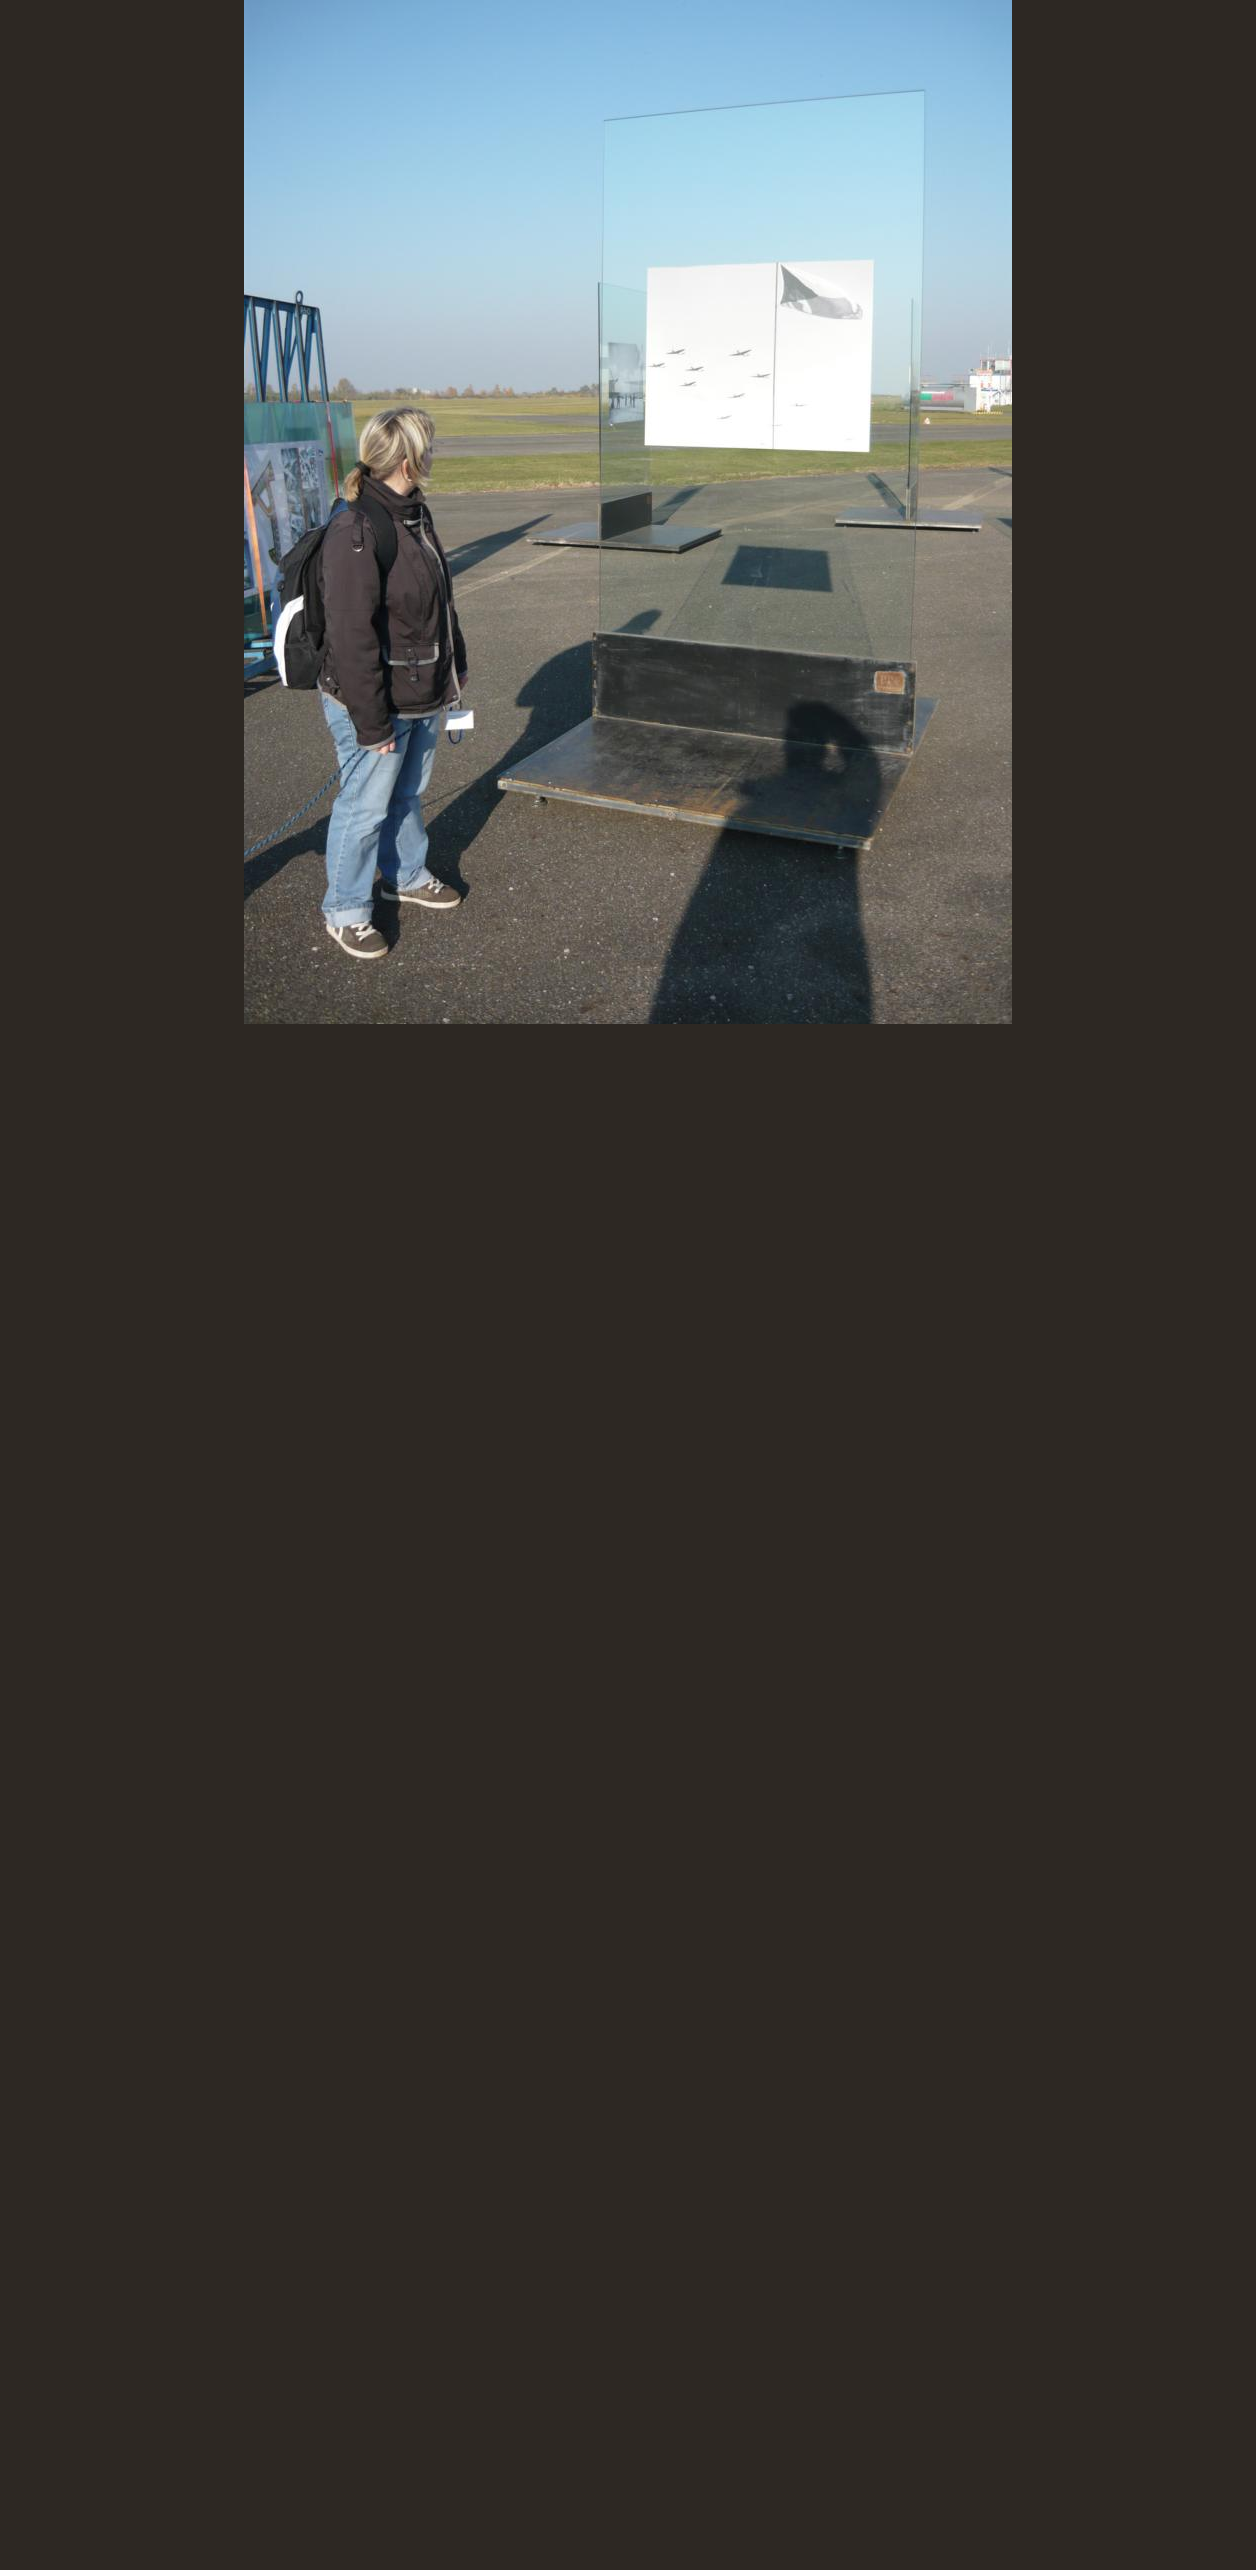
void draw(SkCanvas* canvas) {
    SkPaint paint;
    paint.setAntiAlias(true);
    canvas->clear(0xFF2D2823);
    canvas->drawImageRect(SkImages::DeferredFromEncodedData(SkData::MakeFromFileName("img1.png")), SkRect::MakeXYWH(244, 0, 768, 1024), SkSamplingOptions());
}
